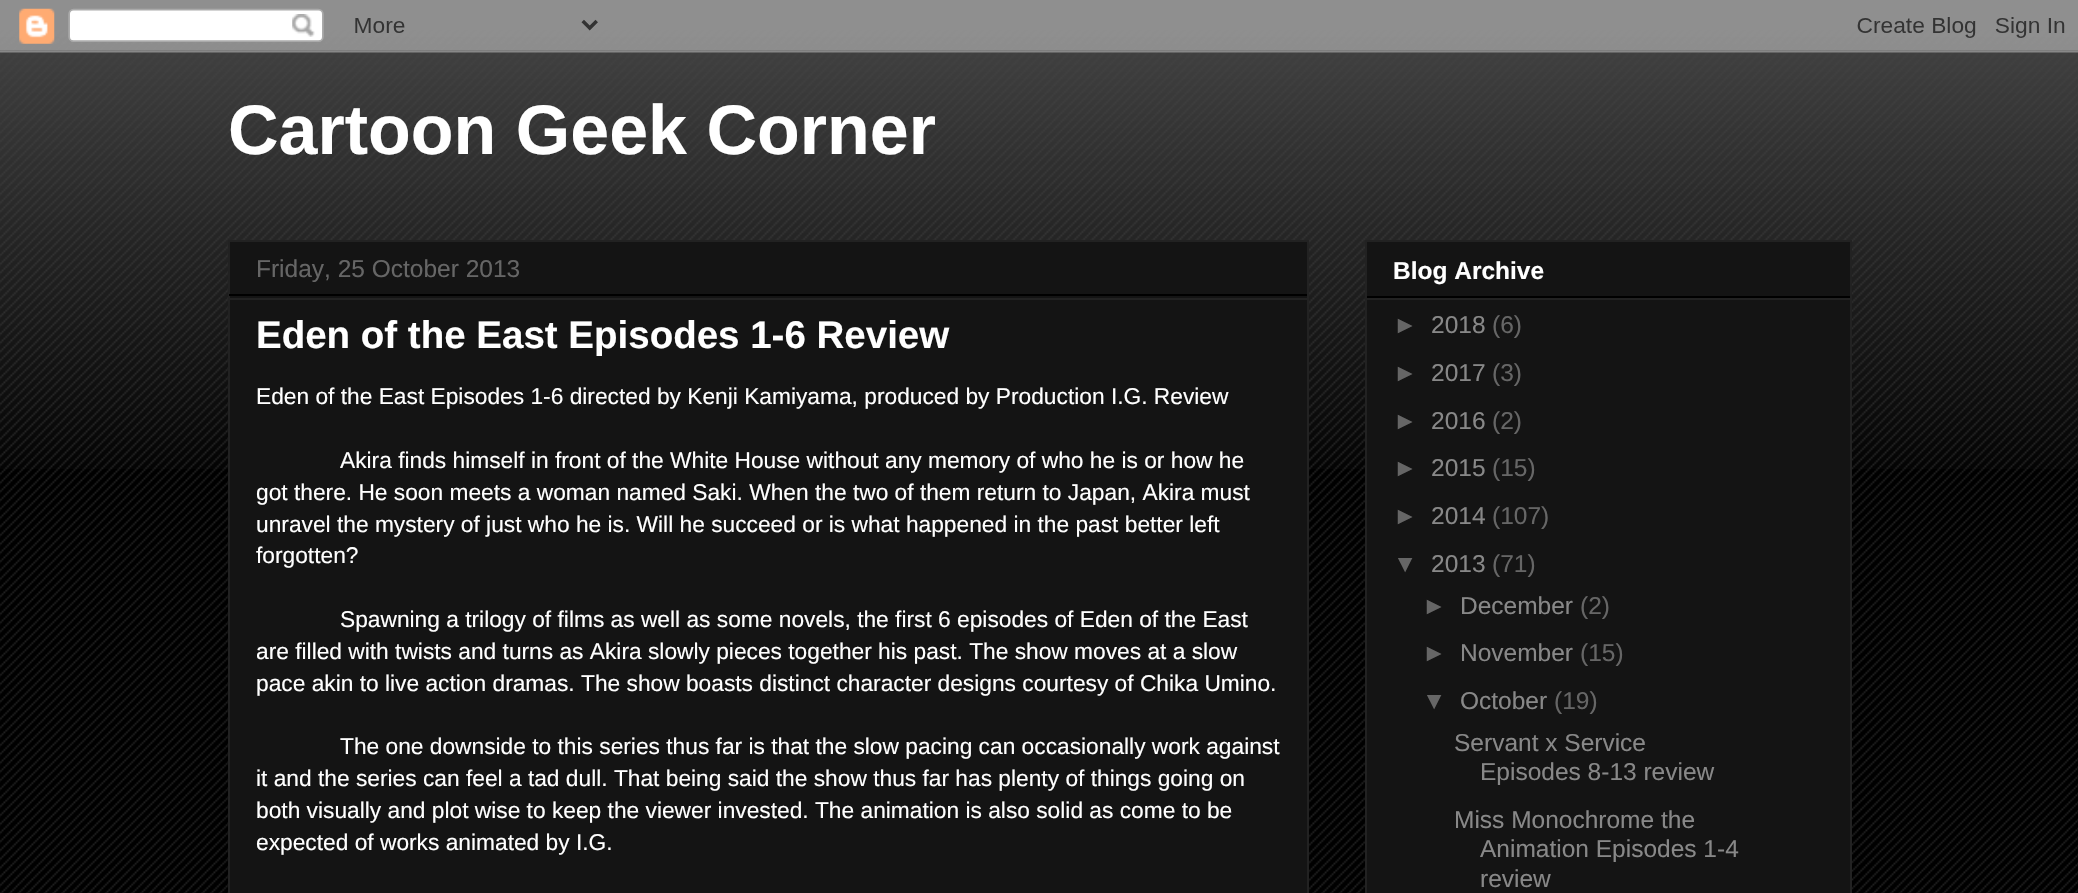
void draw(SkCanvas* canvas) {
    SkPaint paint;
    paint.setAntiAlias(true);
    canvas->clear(0xFF000000);
    canvas->drawImageRect(SkImages::DeferredFromEncodedData(SkData::MakeFromFileName("img1.png")), SkRect::MakeXYWH(0, 23, 2078, 870), SkSamplingOptions());
    canvas->drawImageRect(SkImages::DeferredFromEncodedData(SkData::MakeFromFileName("img2.png")), SkRect::MakeXYWH(0, 0, 2078, 469), SkSamplingOptions());
    canvas->drawImageRect(SkImages::DeferredFromEncodedData(SkData::MakeFromFileName("img3.png")), SkRect::MakeXYWH(0, 0, 2078, 53), SkSamplingOptions());
    SkFont font1(fontMgr->matchFamilyStyle("Liberation Sans", SkFontStyle::Bold()), 70);
    font1.setSubpixel(true);
    paint.setColor(0xFFFFFFFF);
    canvas->drawString("Cartoon Geek Corner", 228, 154, font1, paint);
    paint.setColor(0xFF141414);
    canvas->drawRect(SkRect::MakeXYWH(229, 241, 1079, 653), paint);
    paint.setStyle(SkPaint::kStroke_Style);
    paint.setStrokeWidth(2);
    paint.setColor(0xFF222222);
    canvas->drawRect(SkRect::MakeXYWH(229, 241, 1079, 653), paint);
    paint.setStyle(SkPaint::kFill_Style);
    paint.setColor(0xFF000000);
    canvas->drawRect(SkRect::MakeXYWH(229, 294, 1078, 2), paint);
    SkFont font2(fontMgr->matchFamilyStyle("Liberation Sans", SkFontStyle::Normal()), 24.5f);
    font2.setSubpixel(true);
    paint.setColor(0xFF666666);
    canvas->drawString("Friday, 25 October 2013", 256, 277, font2, paint);
    paint.setColor(0xFF222222);
    canvas->drawRect(SkRect::MakeXYWH(229, 298, 1078, 2), paint);
    SkFont font3(fontMgr->matchFamilyStyle("Liberation Sans", SkFontStyle::Bold()), 38.5f);
    font3.setSubpixel(true);
    paint.setColor(0xFFFFFFFF);
    canvas->drawString("Eden of the East Episodes 1-6 Review", 256, 348, font3, paint);
    SkFont font4(fontMgr->matchFamilyStyle("Liberation Sans", SkFontStyle::Normal()), 22.75f);
    font4.setSubpixel(true);
    canvas->drawString("Eden of the East Episodes 1-6 directed by Kenji Kamiyama, produced by Production I.G. Review", 256, 404, font4, paint);
    canvas->drawString("Akira finds himself in front of the White House without any memory of who he is or how he", 340, 468, font4, paint);
    canvas->drawString("got there. He soon meets a woman named Saki. When the two of them return to Japan, Akira must", 256, 500, font4, paint);
    canvas->drawString("unravel the mystery of just who he is. Will he succeed or is what happened in the past better left", 256, 532, font4, paint);
    canvas->drawString("forgotten?", 256, 563, font4, paint);
    canvas->drawString("Spawning a trilogy of films as well as some novels, the first 6 episodes of Eden of the East", 340, 627, font4, paint);
    canvas->drawString("are filled with twists and turns as Akira slowly pieces together his past. The show moves at a slow", 256, 659, font4, paint);
    canvas->drawString("pace akin to live action dramas. The show boasts distinct character designs courtesy of Chika Umino.", 256, 691, font4, paint);
    canvas->drawString("The one downside to this series thus far is that the slow pacing can occasionally work against", 340, 754, font4, paint);
    canvas->drawString("it and the series can feel a tad dull. That being said the show thus far has plenty of things going on", 256, 786, font4, paint);
    canvas->drawString("both visually and plot wise to keep the viewer invested. The animation is also solid as come to be", 256, 818, font4, paint);
    canvas->drawString("expected of works animated by I.G.", 256, 850, font4, paint);
    paint.setColor(0xFF141414);
    canvas->drawRect(SkRect::MakeXYWH(1366, 241, 485, 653), paint);
    paint.setStyle(SkPaint::kStroke_Style);
    paint.setColor(0xFF222222);
    canvas->drawRect(SkRect::MakeXYWH(1366, 241, 485, 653), paint);
    paint.setStyle(SkPaint::kFill_Style);
    paint.setColor(0xFF000000);
    canvas->drawRect(SkRect::MakeXYWH(1367, 296, 483, 2), paint);
    SkFont font5(fontMgr->matchFamilyStyle("Liberation Sans", SkFontStyle::Bold()), 24.5f);
    font5.setSubpixel(true);
    paint.setColor(0xFFFFFFFF);
    canvas->drawString("Blog Archive", 1393, 279, font5, paint);
    paint.setColor(0xFF222222);
    canvas->drawRect(SkRect::MakeXYWH(1367, 298, 483, 2), paint);
    paint.setColor(0xFF666666);
    canvas->drawString("►", 1393, 333, font2, paint);
    paint.setColor(0xFF888888);
    canvas->drawString("2018", 1431, 333, font2, paint);
    paint.setColor(0xFF666666);
    canvas->drawString("(6)", 1492, 333, font2, paint);
    canvas->drawString("►", 1393, 381, font2, paint);
    paint.setColor(0xFF888888);
    canvas->drawString("2017", 1431, 381, font2, paint);
    paint.setColor(0xFF666666);
    canvas->drawString("(3)", 1492, 381, font2, paint);
    canvas->drawString("►", 1393, 429, font2, paint);
    paint.setColor(0xFF888888);
    canvas->drawString("2016", 1431, 429, font2, paint);
    paint.setColor(0xFF666666);
    canvas->drawString("(2)", 1492, 429, font2, paint);
    canvas->drawString("►", 1393, 476, font2, paint);
    paint.setColor(0xFF888888);
    canvas->drawString("2015", 1431, 476, font2, paint);
    paint.setColor(0xFF666666);
    canvas->drawString("(15)", 1492, 476, font2, paint);
    canvas->drawString("►", 1393, 524, font2, paint);
    paint.setColor(0xFF888888);
    canvas->drawString("2014", 1431, 524, font2, paint);
    paint.setColor(0xFF666666);
    canvas->drawString("(107)", 1492, 524, font2, paint);
    canvas->drawString("▼", 1393, 572, font2, paint);
    paint.setColor(0xFF888888);
    canvas->drawString("2013", 1431, 572, font2, paint);
    paint.setColor(0xFF666666);
    canvas->drawString("(71)", 1492, 572, font2, paint);
    canvas->drawString("►", 1422, 614, font2, paint);
    paint.setColor(0xFF888888);
    canvas->drawString("December", 1460, 614, font2, paint);
    paint.setColor(0xFF666666);
    canvas->drawString("(2)", 1580, 614, font2, paint);
    canvas->drawString("►", 1422, 661, font2, paint);
    paint.setColor(0xFF888888);
    canvas->drawString("November", 1460, 661, font2, paint);
    paint.setColor(0xFF666666);
    canvas->drawString("(15)", 1580, 661, font2, paint);
    canvas->drawString("▼", 1422, 709, font2, paint);
    paint.setColor(0xFF888888);
    canvas->drawString("October", 1460, 709, font2, paint);
    paint.setColor(0xFF666666);
    canvas->drawString("(19)", 1554, 709, font2, paint);
    paint.setColor(0xFF888888);
    canvas->drawString("Servant x Service", 1454, 751, font2, paint);
    canvas->drawString("Episodes 8-13 review", 1480, 780, font2, paint);
    canvas->drawString("Miss Monochrome the", 1454, 828, font2, paint);
    canvas->drawString("Animation Episodes 1-4", 1480, 857, font2, paint);
    canvas->drawString("review", 1480, 887, font2, paint);
}
